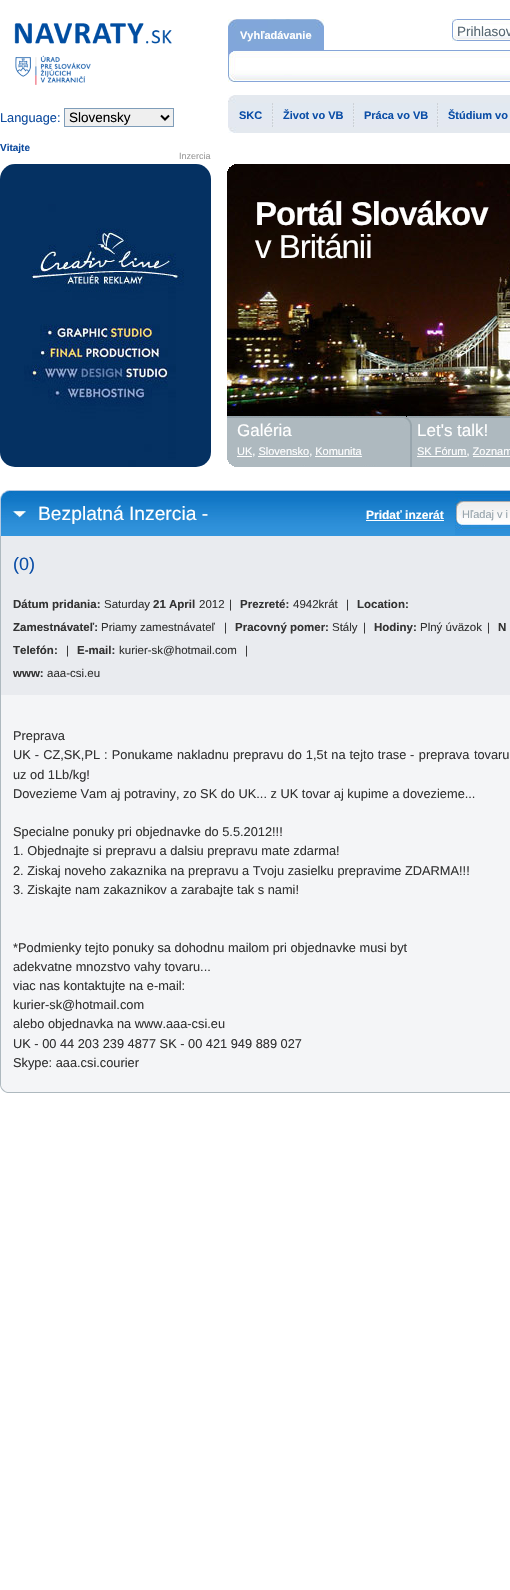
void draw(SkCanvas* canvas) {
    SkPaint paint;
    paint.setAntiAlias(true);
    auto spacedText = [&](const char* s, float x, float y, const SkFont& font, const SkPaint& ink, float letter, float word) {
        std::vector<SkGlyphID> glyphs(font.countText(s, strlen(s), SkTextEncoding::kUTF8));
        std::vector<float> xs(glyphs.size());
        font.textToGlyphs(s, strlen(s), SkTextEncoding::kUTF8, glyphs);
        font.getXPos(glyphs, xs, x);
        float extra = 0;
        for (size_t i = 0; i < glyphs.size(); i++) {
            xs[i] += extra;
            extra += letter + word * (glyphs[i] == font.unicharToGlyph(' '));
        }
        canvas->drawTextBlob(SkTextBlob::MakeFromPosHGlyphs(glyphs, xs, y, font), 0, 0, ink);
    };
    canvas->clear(0xFFFFFFFF);
    canvas->drawImageRect(SkImages::DeferredFromEncodedData(SkData::MakeFromFileName("img1.png")), SkRect::MakeXYWH(0, 23, 172, 62), SkSamplingOptions());
    canvas->drawImageRect(SkImages::DeferredFromEncodedData(SkData::MakeFromFileName("img2.png")), SkRect::MakeXYWH(228, 50, 282, 32), SkSamplingOptions());
    canvas->drawImageRect(SkImages::DeferredFromEncodedData(SkData::MakeFromFileName("img3.png")), SkRect::MakeXYWH(228, 19, 9, 31), SkSamplingOptions());
    canvas->drawImageRect(SkImages::DeferredFromEncodedData(SkData::MakeFromFileName("img4.png")), SkRect::MakeXYWH(237, 19, 87, 31), SkSamplingOptions());
    SkFont font1(fontMgr->matchFamilyStyle("Liberation Sans", SkFontStyle::Bold()), 11);
    font1.setSubpixel(true);
    paint.setColor(0xFFFFFFFF);
    canvas->drawString("Vyhľadávanie", 240, 39, font1, paint);
    canvas->drawImageRect(SkImages::DeferredFromEncodedData(SkData::MakeFromFileName("img5.png")), SkRect::MakeXYWH(452, 19, 58, 22), SkSamplingOptions());
    SkFont font2(fontMgr->matchFamilyStyle("Liberation Sans", SkFontStyle::Normal()), 13.5f);
    font2.setSubpixel(true);
    paint.setColor(0xFF586873);
    canvas->drawString("Prihlasov", 457, 36, font2, paint);
    SkFont font3(fontMgr->matchFamilyStyle("Liberation Sans", SkFontStyle::Normal()), 12.8f);
    font3.setSubpixel(true);
    paint.setColor(0xFF0F4C9F);
    canvas->drawString("Language:", 0, 122, font3, paint);
    paint.setColor(0xFFEFEFEF);
    canvas->drawRect(SkRect::MakeXYWH(64.5f, 108.5f, 109, 18), paint);
    paint.setStyle(SkPaint::kStroke_Style);
    paint.setStrokeWidth(1);
    paint.setColor(0xFF7F9DB9);
    canvas->drawRect(SkRect::MakeXYWH(64.5f, 108.5f, 109, 18), paint);
    paint.setStrokeWidth(2);
    paint.setColor(0xFF000000);
    canvas->drawPath(SkPathBuilder().moveTo(161, 115.5f).lineTo(165, 119.5f).lineTo(169, 115.5f).detach(), paint);
    paint.setStyle(SkPaint::kFill_Style);
    canvas->drawString("Slovensky", 69, 122, font2, paint);
    canvas->drawImageRect(SkImages::DeferredFromEncodedData(SkData::MakeFromFileName("img6.png")), SkRect::MakeXYWH(228, 95, 282, 38), SkSamplingOptions());
    paint.setColor(0xFF0B4EA7);
    canvas->drawString("SKC", 239, 119, font1, paint);
    canvas->drawImageRect(SkImages::DeferredFromEncodedData(SkData::MakeFromFileName("img7.png")), SkRect::MakeXYWH(272, 103, 2, 24), SkSamplingOptions());
    canvas->drawString("Život vo VB", 283, 119, font1, paint);
    canvas->drawImageRect(SkImages::DeferredFromEncodedData(SkData::MakeFromFileName("img7.png")), SkRect::MakeXYWH(353, 103, 2, 24), SkSamplingOptions());
    canvas->drawString("Práca vo VB", 364, 119, font1, paint);
    canvas->drawImageRect(SkImages::DeferredFromEncodedData(SkData::MakeFromFileName("img7.png")), SkRect::MakeXYWH(437, 103, 2, 24), SkSamplingOptions());
    canvas->drawString("Štúdium vo", 448, 119, font1, paint);
    SkFont font4(fontMgr->matchFamilyStyle("Liberation Sans", SkFontStyle::Bold()), 10);
    font4.setSubpixel(true);
    paint.setColor(0xFF0F4C9F);
    canvas->drawString("Vitajte", 0, 151, font4, paint);
    SkFont font5(fontMgr->matchFamilyStyle("Liberation Sans", SkFontStyle::Normal()), 9);
    font5.setSubpixel(true);
    paint.setColor(0xFF999999);
    canvas->drawString("Inzercia", 179, 159, font5, paint);
    canvas->drawImageRect(SkImages::DeferredFromEncodedData(SkData::MakeFromFileName("img8.png")), SkRect::MakeXYWH(0, 164, 211, 303), SkSamplingOptions());
    canvas->drawImageRect(SkImages::DeferredFromEncodedData(SkData::MakeFromFileName("img9.png")), SkRect::MakeXYWH(406, 416, 1, 1), SkSamplingOptions());
    canvas->drawImageRect(SkImages::DeferredFromEncodedData(SkData::MakeFromFileName("img11.png")), SkRect::MakeXYWH(407, 416, 103, 51), SkSamplingOptions());
    canvas->drawImageRect(SkImages::DeferredFromEncodedData(SkData::MakeFromFileName("img10.png")), SkRect::MakeXYWH(227, 416, 185, 51), SkSamplingOptions());
    SkFont font6(fontMgr->matchFamilyStyle("Liberation Sans", SkFontStyle::Normal()), 17);
    font6.setSubpixel(true);
    paint.setColor(0xFFFFFFFF);
    canvas->drawString("Galéria", 237, 436, font6, paint);
    canvas->drawRect(SkRect::MakeXYWH(237, 456, 15, 1), paint);
    SkFont font7(fontMgr->matchFamilyStyle("Liberation Sans", SkFontStyle::Normal()), 11);
    font7.setSubpixel(true);
    canvas->drawString("UK, Slovensko, Komunita", 237, 455, font7, paint);
    canvas->drawRect(SkRect::MakeXYWH(258, 456, 51, 1), paint);
    canvas->drawRect(SkRect::MakeXYWH(315, 456, 47, 1), paint);
    canvas->drawString("Let's talk!", 417, 436, font6, paint);
    canvas->drawRect(SkRect::MakeXYWH(417, 456, 50, 1), paint);
    canvas->drawString("SK Fórum, Zoznam", 417, 455, font7, paint);
    canvas->drawRect(SkRect::MakeXYWH(473, 456, 37, 1), paint);
    canvas->drawImageRect(SkImages::DeferredFromEncodedData(SkData::MakeFromFileName("img12.png")), SkRect::MakeXYWH(227, 460, 7, 7), SkSamplingOptions());
    canvas->drawImageRect(SkImages::DeferredFromEncodedData(SkData::MakeFromFileName("img13.png")), SkRect::MakeXYWH(227, 164, 283, 252), SkSamplingOptions());
    canvas->drawImageRect(SkImages::DeferredFromEncodedData(SkData::MakeFromFileName("img14.png")), SkRect::MakeXYWH(227, 164, 7, 7), SkSamplingOptions());
    SkFont font8(fontMgr->matchFamilyStyle("Liberation Sans", SkFontStyle::Bold()), 33);
    font8.setSubpixel(true);
    spacedText("Portál Slovákov", 255, 225, font8, paint, -1, 0);
    SkFont font9(fontMgr->matchFamilyStyle("Liberation Sans", SkFontStyle::Normal()), 33);
    font9.setSubpixel(true);
    spacedText("v Británii", 255, 258, font9, paint, -1, 0);
    canvas->drawImageRect(SkImages::DeferredFromEncodedData(SkData::MakeFromFileName("img15.png")), SkRect::MakeXYWH(0, 490, 510, 46), SkSamplingOptions());
    SkFont font10(fontMgr->matchFamilyStyle("Liberation Sans", SkFontStyle::Normal()), 19.25f);
    font10.setSubpixel(true);
    canvas->drawString("Bezplatná Inzercia -", 38, 520, font10, paint);
    SkFont font11(fontMgr->matchFamilyStyle("Liberation Sans", SkFontStyle::Bold()), 12);
    font11.setSubpixel(true);
    canvas->drawString("Pridať inzerát", 366, 519, font11, paint);
    canvas->drawRect(SkRect::MakeXYWH(366, 520, 78, 1), paint);
    canvas->drawImageRect(SkImages::DeferredFromEncodedData(SkData::MakeFromFileName("img16.png")), SkRect::MakeXYWH(455, 493, 55, 42), SkSamplingOptions());
    paint.setColor(0xFF96A3AB);
    canvas->drawString("Hľadaj v i", 462, 518, font7, paint);
    paint.setColor(0xFFF4F5F7);
    canvas->drawRect(SkRect::MakeXYWH(1, 695, 509, 389), paint);
    canvas->drawImageRect(SkImages::DeferredFromEncodedData(SkData::MakeFromFileName("img17.png")), SkRect::MakeXYWH(0, 1084, 510, 9), SkSamplingOptions());
    paint.setColor(0xFFAEB9BF);
    canvas->drawRect(SkRect::MakeXYWH(0, 536, 1, 548), paint);
    paint.setColor(0xFFE9EBEF);
    canvas->drawRect(SkRect::MakeXYWH(1, 536, 509, 159), paint);
    SkFont font12(fontMgr->matchFamilyStyle("Liberation Sans", SkFontStyle::Normal()), 18);
    font12.setSubpixel(true);
    paint.setColor(0xFF0B4EA7);
    canvas->drawString("(0)", 13, 570, font12, paint);
    SkFont font13(fontMgr->matchFamilyStyle("Liberation Sans", SkFontStyle::Bold()), 11.5f);
    font13.setSubpixel(true);
    paint.setColor(0xFF333333);
    canvas->drawString("Dátum pridania:", 13, 608, font13, paint);
    SkFont font14(fontMgr->matchFamilyStyle("Liberation Sans", SkFontStyle::Normal()), 11.5f);
    font14.setSubpixel(true);
    canvas->drawString("Saturday", 104, 608, font14, paint);
    canvas->drawString("21 April", 153, 608, font13, paint);
    canvas->drawString("2012", 199, 608, font14, paint);
    canvas->drawString("|", 229, 608, font14, paint);
    canvas->drawString("Prezreté:", 240, 608, font13, paint);
    canvas->drawString("4942krát", 293, 608, font14, paint);
    canvas->drawString("|", 346, 608, font14, paint);
    canvas->drawString("Location:", 357, 608, font13, paint);
    canvas->drawString("Zamestnávateľ:", 13, 631, font13, paint);
    canvas->drawString("Priamy zamestnávateľ", 101, 631, font14, paint);
    canvas->drawString("|", 224, 631, font14, paint);
    canvas->drawString("Pracovný pomer:", 235, 631, font13, paint);
    canvas->drawString("Stály", 332, 631, font14, paint);
    canvas->drawString("|", 363, 631, font14, paint);
    canvas->drawString("Hodiny:", 374, 631, font13, paint);
    canvas->drawString("Plný úväzok", 420, 631, font14, paint);
    canvas->drawString("|", 487, 631, font14, paint);
    canvas->drawString("N", 498, 631, font13, paint);
    canvas->drawString("Telefón:", 13, 654, font13, paint);
    canvas->drawString("|", 66, 654, font14, paint);
    canvas->drawString("E-mail:", 77, 654, font13, paint);
    canvas->drawString("kurier-sk@hotmail.com", 119, 654, font14, paint);
    canvas->drawString("|", 245, 654, font14, paint);
    canvas->drawString("www:", 13, 677, font13, paint);
    canvas->drawString("aaa-csi.eu", 47, 677, font14, paint);
    canvas->drawString("Preprava", 13, 740, font3, paint);
    spacedText("UK - CZ,SK,PL : Ponukame nakladnu prepravu do 1,5t na tejto trase", 13, 759, font3, paint, 0, 0.5f);
    spacedText("- preprava tovaru", 410, 759, font3, paint, 0, 1);
    canvas->drawString("uz od 1Lb/kg!", 13, 779, font3, paint);
    canvas->drawString("Dovezieme Vam aj potraviny, zo SK do UK... z UK tovar aj kupime a dovezieme...", 13, 798, font3, paint);
    canvas->drawString("Specialne ponuky pri objednavke do 5.5.2012!!!", 13, 836, font3, paint);
    canvas->drawString("1. Objednajte si prepravu a dalsiu prepravu mate zdarma!", 13, 855, font3, paint);
    canvas->drawString("2. Ziskaj noveho zakaznika na prepravu a Tvoju zasielku prepravime ZDARMA!!!", 13, 875, font3, paint);
    canvas->drawString("3. Ziskajte nam zakaznikov a zarabajte tak s nami!", 13, 894, font3, paint);
    canvas->drawString("*Podmienky tejto ponuky sa dohodnu mailom pri objednavke musi byt", 13, 952, font3, paint);
    canvas->drawString("adekvatne mnozstvo vahy tovaru...", 13, 971, font3, paint);
    canvas->drawString("viac nas kontaktujte na e-mail:", 13, 990, font3, paint);
    canvas->drawString("kurier-sk@hotmail.com", 13, 1009, font3, paint);
    canvas->drawString("alebo objednavka na www.aaa-csi.eu", 13, 1028, font3, paint);
    canvas->drawString("UK - 00 44 203 239 4877 SK - 00 421 949 889 027", 13, 1048, font3, paint);
    canvas->drawString("Skype: aaa.csi.courier", 13, 1067, font3, paint);
}
